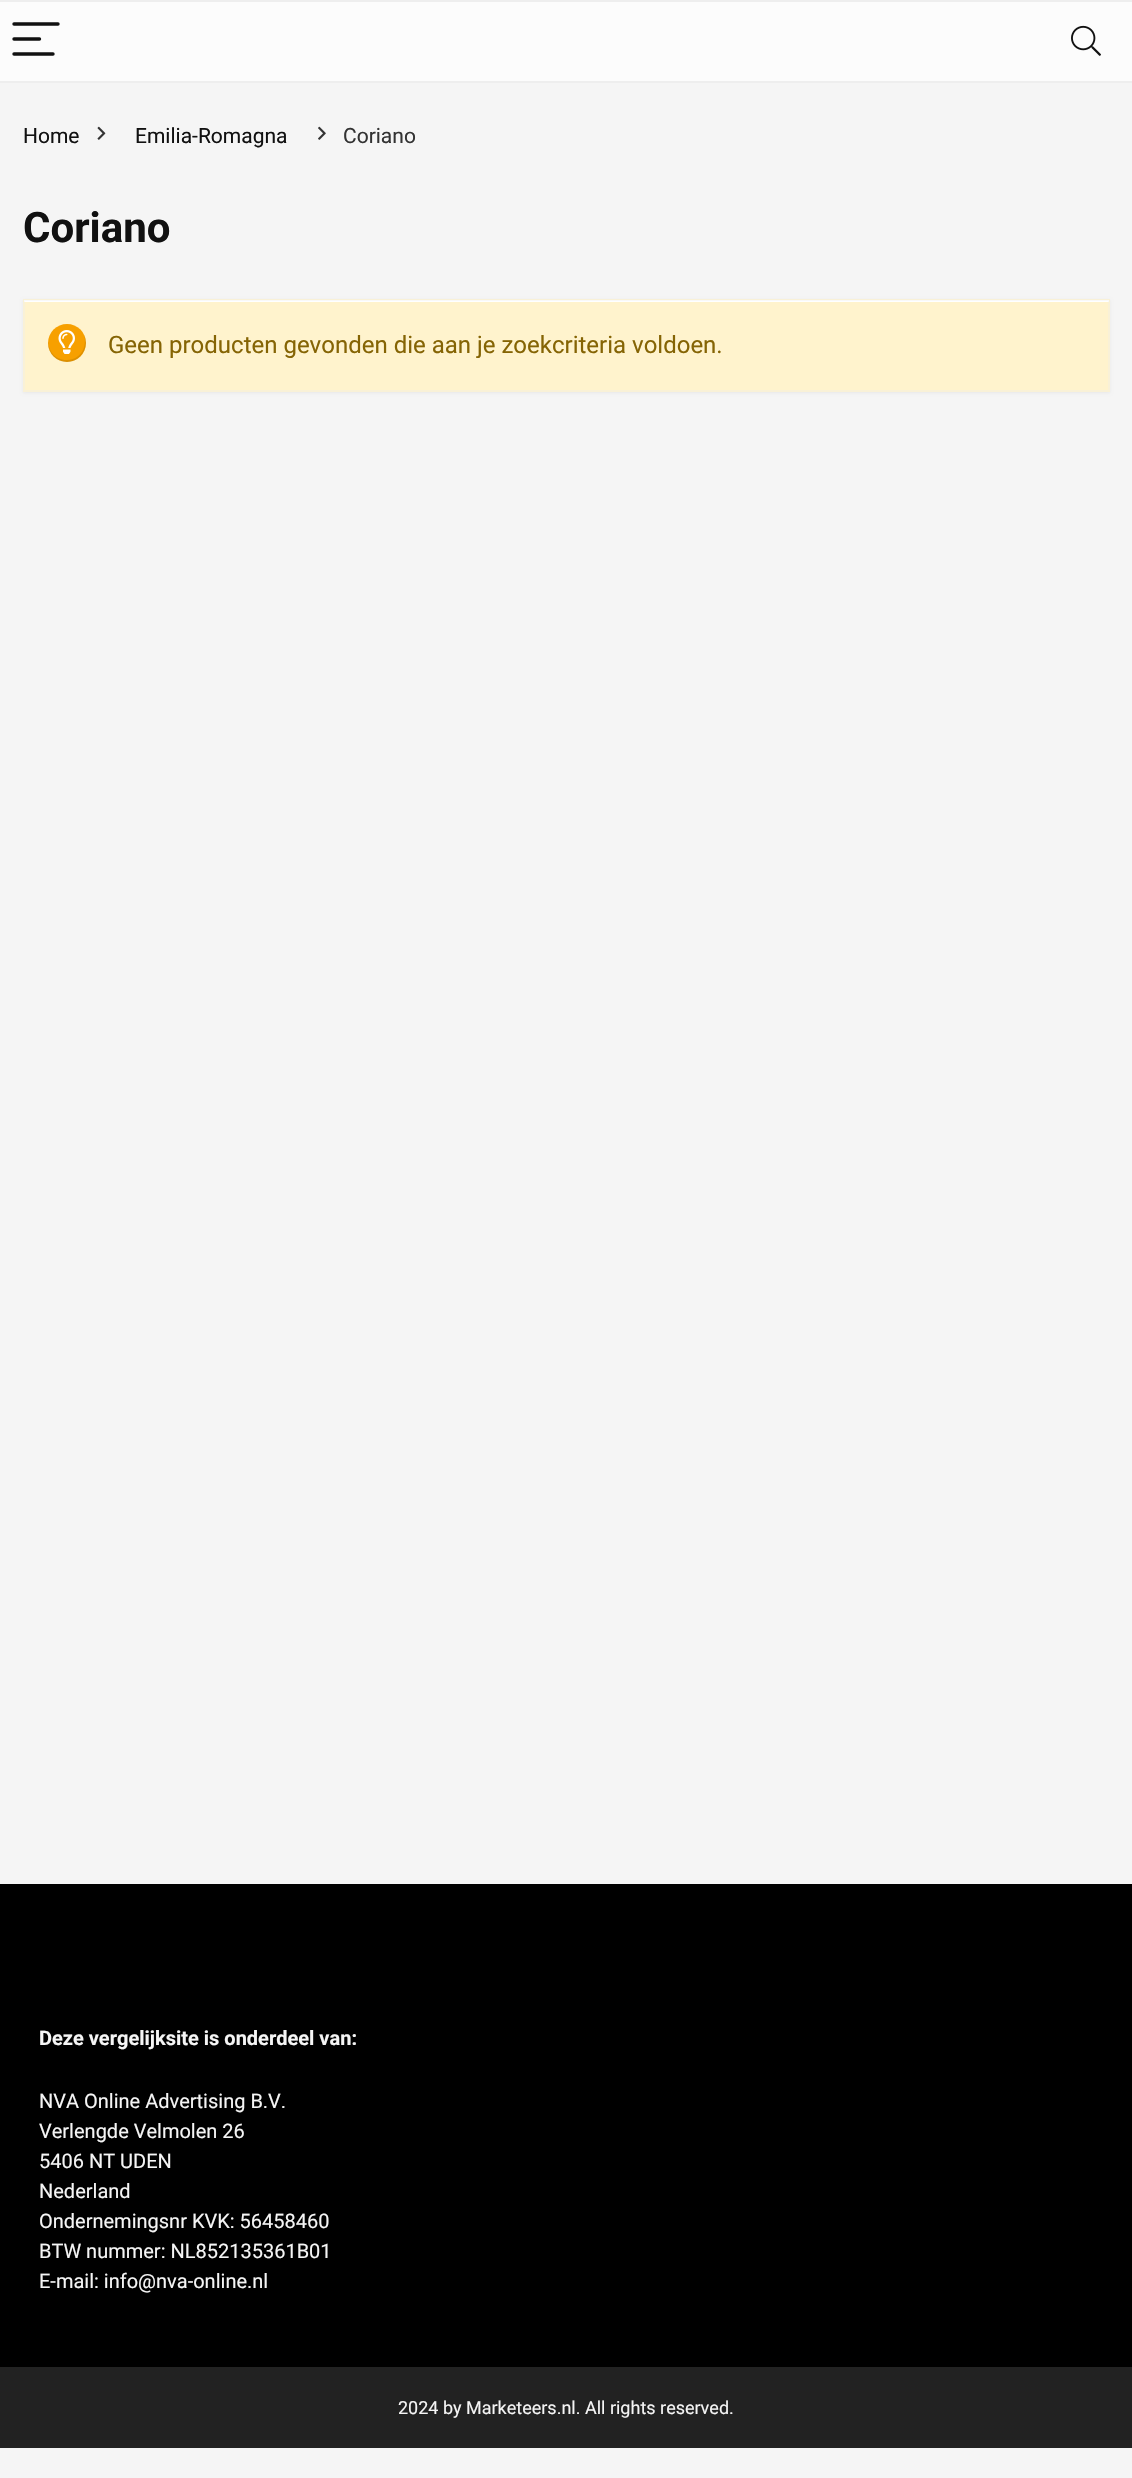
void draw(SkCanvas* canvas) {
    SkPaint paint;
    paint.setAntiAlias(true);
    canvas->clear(0xFFF5F5F5);
    paint.setColor(0xFFFCFCFC);
    canvas->drawRect(SkRect::MakeXYWH(0, 2, 1132, 79), paint);
    paint.setColor(0xFFEEEEEE);
    canvas->drawRect(SkRect::MakeXYWH(0, 0, 1132, 2), paint);
    canvas->drawRect(SkRect::MakeXYWH(0, 81, 1132, 2), paint);
    paint.setStyle(SkPaint::kStroke_Style);
    paint.setStrokeWidth(3.4f);
    paint.setStrokeCap(SkPaint::kRound_Cap);
    paint.setColor(0xFF111111);
    canvas->drawPath(SkPathBuilder().moveTo(14, 24).lineTo(58, 24).moveTo(14, 39).lineTo(39.5f, 39).moveTo(14, 54).lineTo(53, 54).detach(), paint);
    canvas->drawImageRect(SkImages::DeferredFromEncodedData(SkData::MakeFromFileName("img1.png")), SkRect::MakeXYWH(1071, 25, 30, 31), SkSamplingOptions());
    SkFont font1(fontMgr->matchFamilyStyle("Roboto", SkFontStyle::Normal()), 21);
    font1.setSubpixel(true);
    paint.setStyle(SkPaint::kFill_Style);
    canvas->drawString("Home", 23, 143, font1, paint);
    canvas->drawImageRect(SkImages::DeferredFromEncodedData(SkData::MakeFromFileName("img2.png")), SkRect::MakeXYWH(97, 126, 9, 14), SkSamplingOptions());
    canvas->drawString("Emilia-Romagna", 135, 143, font1, paint);
    canvas->drawImageRect(SkImages::DeferredFromEncodedData(SkData::MakeFromFileName("img3.png")), SkRect::MakeXYWH(318, 126, 8, 14), SkSamplingOptions());
    paint.setColor(0xFF333333);
    canvas->drawString("Coriano", 343, 143, font1, paint);
    SkFont font2(fontMgr->matchFamilyStyle("Roboto", SkFontStyle::Bold()), 42);
    font2.setSubpixel(true);
    paint.setColor(0xFF111111);
    canvas->drawString("Coriano", 23, 242, font2, paint);
    paint.setColor(0x0D000000);
    paint.setMaskFilter(SkMaskFilter::MakeBlur(kNormal_SkBlurStyle, 1.5f));
    canvas->drawRect(SkRect::MakeXYWH(23, 300, 1087, 93), paint);
    paint.setMaskFilter(nullptr);
    paint.setColor(0xFFFFF3CD);
    canvas->drawRect(SkRect::MakeXYWH(23, 299, 1087, 93), paint);
    paint.setColor(0xFFFFFFFF);
    canvas->drawRect(SkRect::MakeXYWH(24, 300, 1085, 2), paint);
    paint.setStyle(SkPaint::kStroke_Style);
    paint.setStrokeWidth(2);
    paint.setStrokeCap(SkPaint::kButt_Cap);
    paint.setColor(0x54EEEEEE);
    canvas->drawRect(SkRect::MakeXYWH(24, 300, 1085, 91), paint);
    paint.setStyle(SkPaint::kFill_Style);
    paint.setColor(0xFFF7A000);
    canvas->drawCircle(67, 343, 19, paint);
    paint.setColor(0x1A000000);
    canvas->drawPath(SkPathBuilder().moveTo(48.5f, 339.5f).cubicTo(47.5f, 344.5f, 48.5f, 349.5f, 51, 353.5f).cubicTo(53.5f, 356.5f, 56, 359, 59.5f, 360.5f).cubicTo(76, 367.5f, 91.5f, 350, 84, 334.5f).cubicTo(87.5f, 345.5f, 81.5f, 360, 67, 360).cubicTo(54, 360, 47.5f, 349.5f, 48.5f, 339.5f).close().detach(), paint);
    canvas->drawImageRect(SkImages::DeferredFromEncodedData(SkData::MakeFromFileName("img4.png")), SkRect::MakeXYWH(58, 330, 17, 24), SkSamplingOptions());
    SkFont font3(fontMgr->matchFamilyStyle("Roboto", SkFontStyle::Normal()), 24);
    font3.setSubpixel(true);
    paint.setColor(0xFF856404);
    canvas->drawString("Geen producten gevonden die aan je zoekcriteria voldoen.", 108, 353, font3, paint);
    paint.setColor(0xFF000000);
    canvas->drawRect(SkRect::MakeXYWH(0, 1884, 1132, 483), paint);
    SkFont font4(fontMgr->matchFamilyStyle("Roboto", SkFontStyle::Bold()), 20);
    font4.setSubpixel(true);
    paint.setColor(0xFFF5F5F5);
    canvas->drawString("Deze vergelijksite is onderdeel van:", 39, 2045, font4, paint);
    SkFont font5(fontMgr->matchFamilyStyle("Roboto", SkFontStyle::Normal()), 20);
    font5.setSubpixel(true);
    canvas->drawString("NVA Online Advertising B.V.", 39, 2108, font5, paint);
    canvas->drawString("Verlengde Velmolen 26", 39, 2138, font5, paint);
    canvas->drawString("5406 NT UDEN", 39, 2168, font5, paint);
    canvas->drawString("Nederland", 39, 2198, font5, paint);
    canvas->drawString("Ondernemingsnr KVK: 56458460", 39, 2228, font5, paint);
    canvas->drawString("BTW nummer: NL852135361B01", 39, 2258, font5, paint);
    canvas->drawString("E-mail: info@nva-online.nl", 39, 2288, font5, paint);
    paint.setColor(0xFF222222);
    canvas->drawRect(SkRect::MakeXYWH(0, 2367, 1132, 81), paint);
    SkFont font6(fontMgr->matchFamilyStyle("Roboto", SkFontStyle::Normal()), 18);
    font6.setSubpixel(true);
    paint.setColor(0xFFF5F5F5);
    canvas->drawString("2024 by Marketeers.nl. All rights reserved.", 398, 2414, font6, paint);
}
